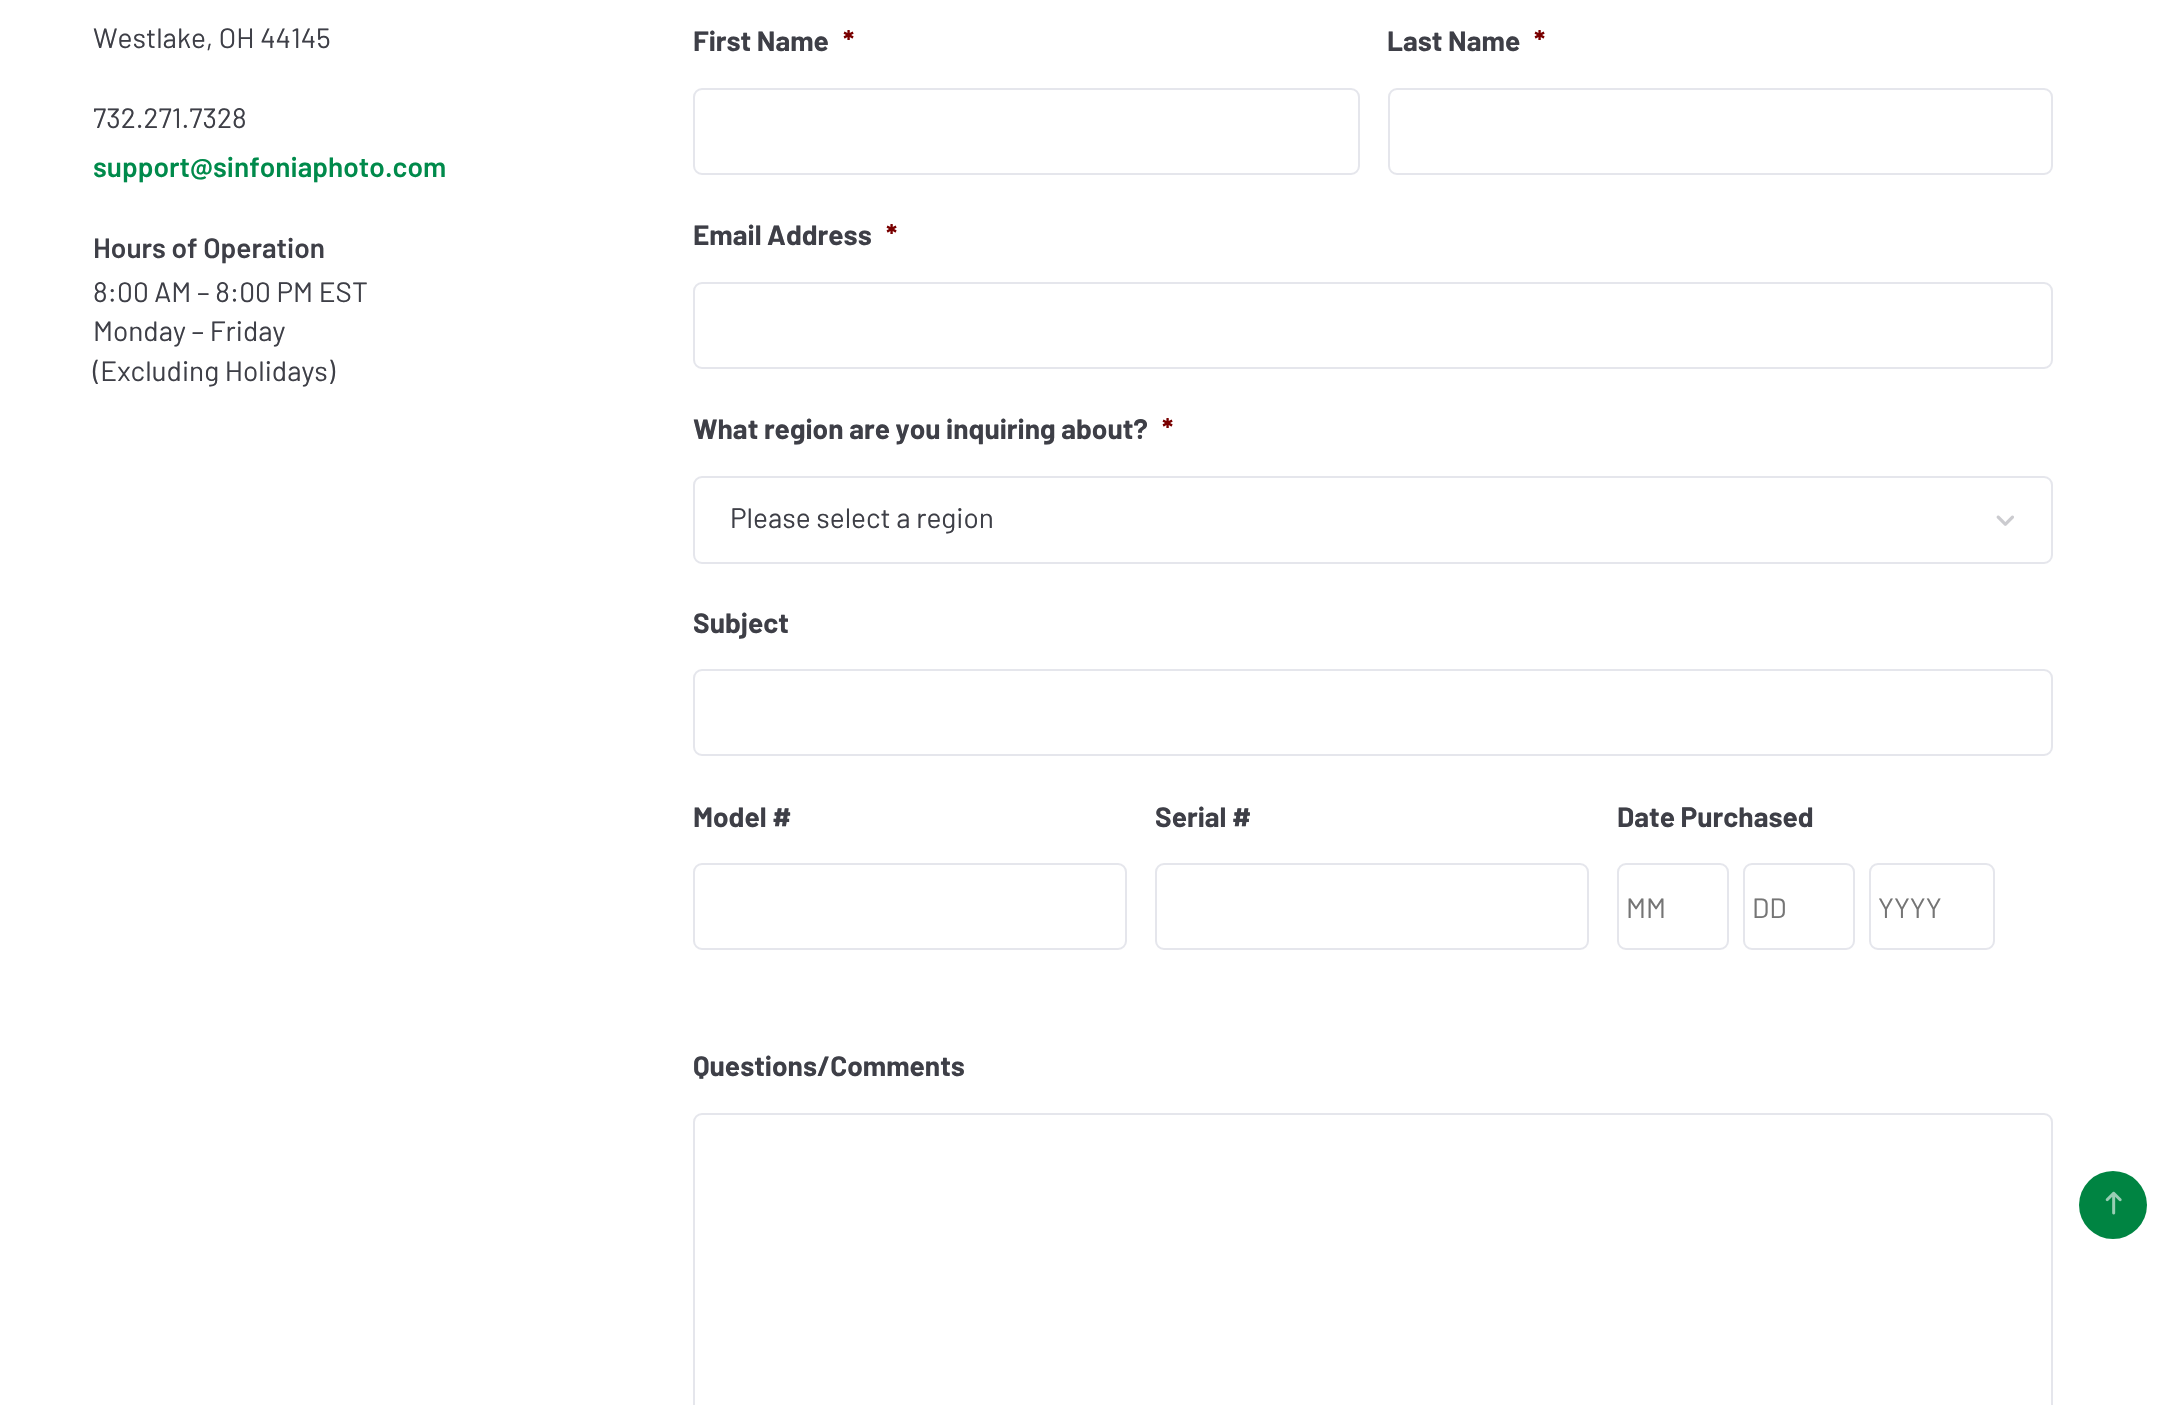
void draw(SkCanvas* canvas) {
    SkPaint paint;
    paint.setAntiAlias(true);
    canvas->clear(0xFFFFFFFF);
    SkFont font1(fontMgr->matchFamilyStyle("Barlow", SkFontStyle::Normal()), 28);
    font1.setSubpixel(true);
    paint.setColor(0xFF3E3F47);
    canvas->drawString("Westlake, OH 44145", 93, 48, font1, paint);
    canvas->drawString("732.271.7328", 93, 128, font1, paint);
    SkFont font2(fontMgr->matchFamilyStyle("Barlow", SkFontStyle(600, SkFontStyle::kNormal_Width, SkFontStyle::kUpright_Slant)), 28);
    font2.setSubpixel(true);
    paint.setColor(0xFF008A4B);
    canvas->drawString("support@sinfoniaphoto.com", 93, 177, font2, paint);
    paint.setColor(0xFF3E3F47);
    canvas->drawString("Hours of Operation", 93, 258, font2, paint);
    canvas->drawString("8:00 AM – 8:00 PM EST", 93, 302, font1, paint);
    canvas->drawString("Monday – Friday", 93, 341, font1, paint);
    canvas->drawString("(Excluding Holidays)", 93, 381, font1, paint);
    SkFont font3(fontMgr->matchFamilyStyle("Barlow", SkFontStyle::Bold()), 28);
    font3.setSubpixel(true);
    canvas->drawString("First Name", 693, 51, font3, paint);
    paint.setColor(0xFF790000);
    canvas->drawString("*", 843, 51, font3, paint);
    paint.setStyle(SkPaint::kStroke_Style);
    paint.setStrokeWidth(2);
    paint.setColor(0xFFE5E6EC);
    canvas->drawRoundRect(SkRect::MakeXYWH(694, 89, 665, 85), 8, 8, paint);
    paint.setStyle(SkPaint::kFill_Style);
    paint.setColor(0xFF3E3F47);
    canvas->drawString("Last Name", 1387, 51, font3, paint);
    paint.setColor(0xFF790000);
    canvas->drawString("*", 1534, 51, font3, paint);
    paint.setStyle(SkPaint::kStroke_Style);
    paint.setColor(0xFFE5E6EC);
    canvas->drawRoundRect(SkRect::MakeXYWH(1389, 89, 663, 85), 8, 8, paint);
    paint.setStyle(SkPaint::kFill_Style);
    paint.setColor(0xFF3E3F47);
    canvas->drawString("Email Address", 693, 245, font3, paint);
    paint.setColor(0xFF790000);
    canvas->drawString("*", 886, 245, font3, paint);
    paint.setStyle(SkPaint::kStroke_Style);
    paint.setColor(0xFFE5E6EC);
    canvas->drawRoundRect(SkRect::MakeXYWH(694, 283, 1358, 85), 8, 8, paint);
    paint.setStyle(SkPaint::kFill_Style);
    paint.setColor(0xFF3E3F47);
    canvas->drawString("What region are you inquiring about?", 693, 439, font3, paint);
    paint.setColor(0xFF790000);
    canvas->drawString("*", 1162, 439, font3, paint);
    paint.setStyle(SkPaint::kStroke_Style);
    paint.setColor(0xFFE5E6EC);
    canvas->drawRoundRect(SkRect::MakeXYWH(694, 477, 1358, 86), 8, 8, paint);
    paint.setStyle(SkPaint::kFill_Style);
    paint.setColor(0xFF3E3F47);
    canvas->drawString("Please select a region", 730, 528, font1, paint);
    canvas->drawImageRect(SkImages::DeferredFromEncodedData(SkData::MakeFromFileName("img1.png")), SkRect::MakeXYWH(1996, 515, 18, 11), SkSamplingOptions());
    canvas->drawString("Subject", 693, 633, font3, paint);
    paint.setStyle(SkPaint::kStroke_Style);
    paint.setColor(0xFFE5E6EC);
    canvas->drawRoundRect(SkRect::MakeXYWH(694, 670, 1358, 85), 8, 8, paint);
    paint.setStyle(SkPaint::kFill_Style);
    paint.setColor(0xFF3E3F47);
    canvas->drawString("Model #", 693, 827, font3, paint);
    paint.setStyle(SkPaint::kStroke_Style);
    paint.setColor(0xFFE5E6EC);
    canvas->drawRoundRect(SkRect::MakeXYWH(694, 864, 432, 85), 8, 8, paint);
    paint.setStyle(SkPaint::kFill_Style);
    paint.setColor(0xFF3E3F47);
    canvas->drawString("Serial #", 1155, 827, font3, paint);
    paint.setStyle(SkPaint::kStroke_Style);
    paint.setColor(0xFFE5E6EC);
    canvas->drawRoundRect(SkRect::MakeXYWH(1156, 864, 432, 85), 8, 8, paint);
    paint.setStyle(SkPaint::kFill_Style);
    paint.setColor(0xFF3E3F47);
    canvas->drawString("Date Purchased", 1617, 827, font3, paint);
    paint.setStyle(SkPaint::kStroke_Style);
    paint.setColor(0xFFE5E6EC);
    canvas->drawRoundRect(SkRect::MakeXYWH(1618, 864, 110, 85), 8, 8, paint);
    paint.setStyle(SkPaint::kFill_Style);
    paint.setColor(0xFF757575);
    canvas->drawString("MM", 1626, 918, font1, paint);
    paint.setStyle(SkPaint::kStroke_Style);
    paint.setColor(0xFFE5E6EC);
    canvas->drawRoundRect(SkRect::MakeXYWH(1744, 864, 110, 85), 8, 8, paint);
    paint.setStyle(SkPaint::kFill_Style);
    paint.setColor(0xFF757575);
    canvas->drawString("DD", 1752, 918, font1, paint);
    paint.setStyle(SkPaint::kStroke_Style);
    paint.setColor(0xFFE5E6EC);
    canvas->drawRoundRect(SkRect::MakeXYWH(1870, 864, 124, 85), 8, 8, paint);
    paint.setStyle(SkPaint::kFill_Style);
    paint.setColor(0xFF757575);
    canvas->drawString("YYYY", 1878, 918, font1, paint);
    paint.setColor(0xFF3E3F47);
    canvas->drawString("Questions/Comments", 693, 1076, font3, paint);
    paint.setStyle(SkPaint::kStroke_Style);
    paint.setColor(0xFFE5E6EC);
    canvas->drawRoundRect(SkRect::MakeXYWH(694, 1114, 1358, 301), 8, 8, paint);
    paint.setStyle(SkPaint::kFill_Style);
    paint.setColor(0xFF008442);
    canvas->drawCircle(2113, 1205, 34, paint);
    canvas->drawImageRect(SkImages::DeferredFromEncodedData(SkData::MakeFromFileName("img2.png")), SkRect::MakeXYWH(2105, 1191, 17, 24), SkSamplingOptions());
}
